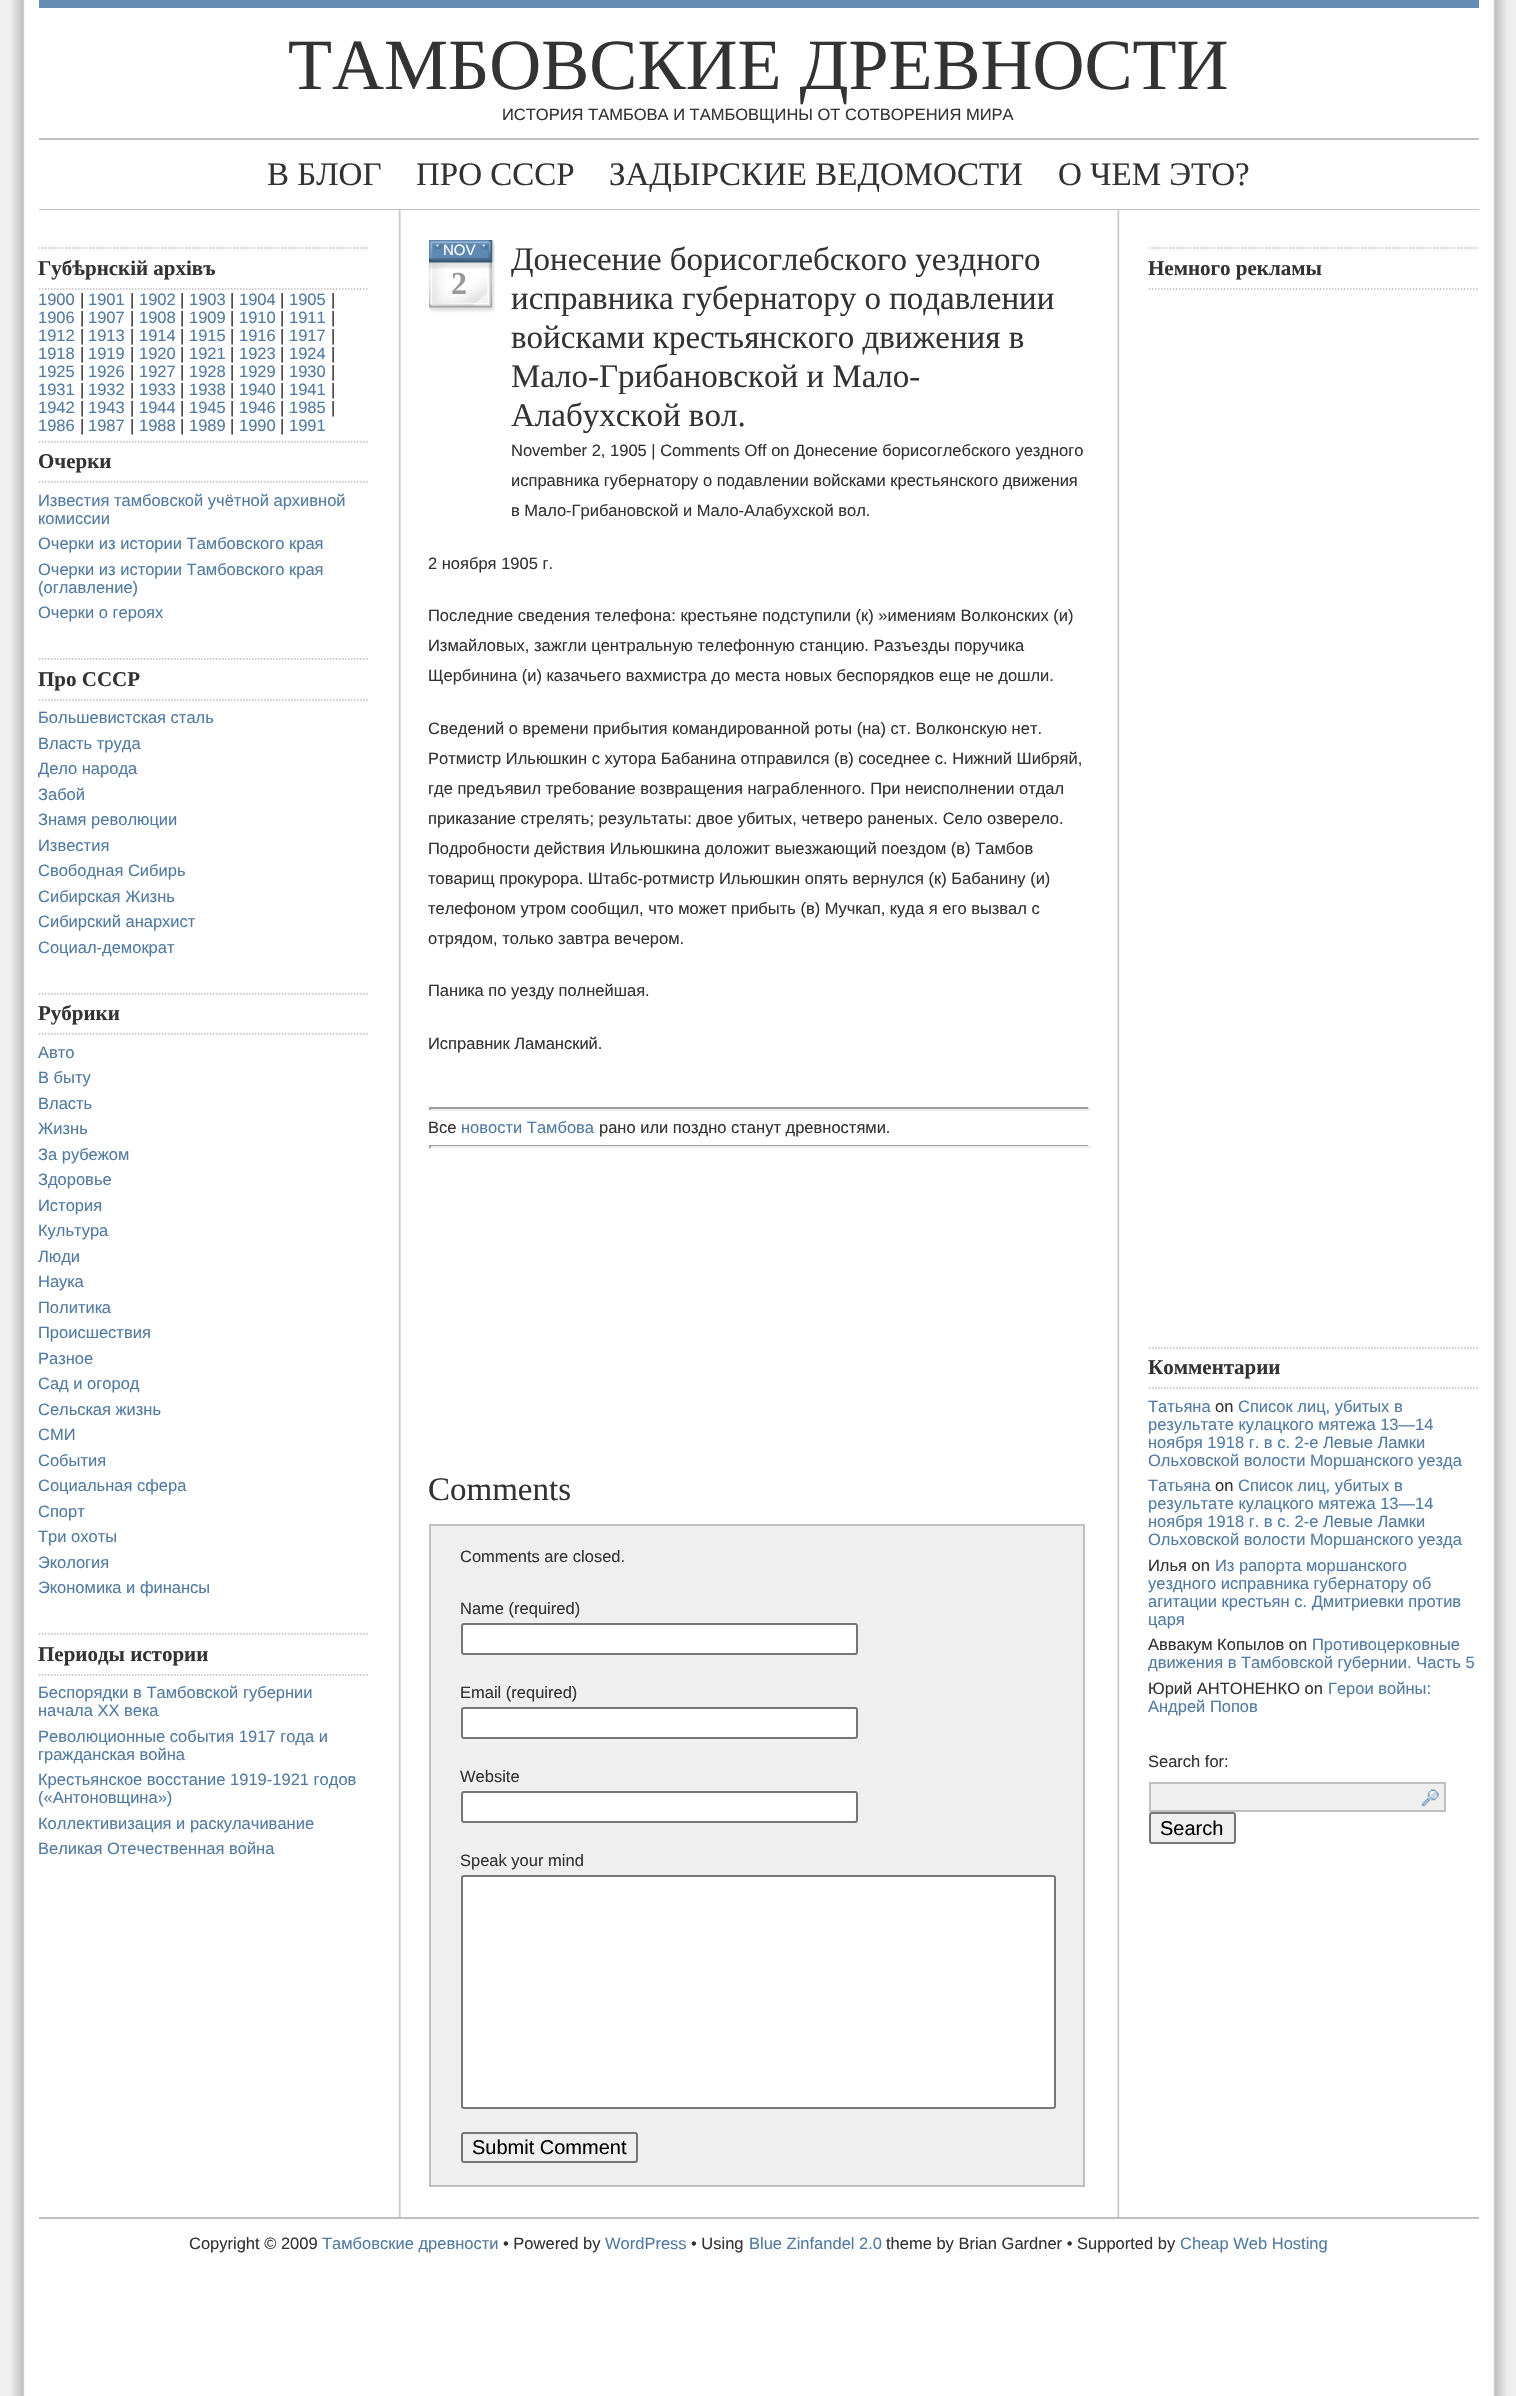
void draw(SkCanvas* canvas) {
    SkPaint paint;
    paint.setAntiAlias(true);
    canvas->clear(0xFFEFEFEF);
    canvas->drawImageRect(SkImages::DeferredFromEncodedData(SkData::MakeFromFileName("img1.png")), SkRect::MakeXYWH(11, 0, 1496, 2396), SkSamplingOptions());
    paint.setColor(0xFF658DB5);
    canvas->drawRect(SkRect::MakeXYWH(39, 0, 1440, 8), paint);
    SkFont font1(fontMgr->matchFamilyStyle("Liberation Serif", SkFontStyle::Normal()), 72);
    font1.setSubpixel(true);
    paint.setColor(0xFF333333);
    canvas->drawString("ТАМБОВСКИЕ ДРЕВНОСТИ", 288, 89, font1, paint);
    SkFont font2(fontMgr->matchFamilyStyle("Liberation Sans", SkFontStyle::Normal()), 16.5f);
    font2.setSubpixel(true);
    canvas->drawString("ИСТОРИЯ ТАМБОВА И ТАМБОВЩИНЫ ОТ СОТВОРЕНИЯ МИРА", 502, 120, font2, paint);
    paint.setColor(0xFFC0C0C0);
    canvas->drawRect(SkRect::MakeXYWH(39, 138, 1440, 2), paint);
    canvas->drawRect(SkRect::MakeXYWH(39, 209, 1440, 1), paint);
    SkFont font3(fontMgr->matchFamilyStyle("Liberation Serif", SkFontStyle::Normal()), 33);
    font3.setSubpixel(true);
    paint.setColor(0xFF333333);
    canvas->drawString("В БЛОГ", 267, 185, font3, paint);
    canvas->drawString("ПРО СССР", 416, 185, font3, paint);
    canvas->drawString("ЗАДЫРСКИЕ ВЕДОМОСТИ", 609, 185, font3, paint);
    canvas->drawString("О ЧЕМ ЭТО?", 1058, 185, font3, paint);
    paint.setColor(0xFFEFEFEF);
    canvas->drawRect(SkRect::MakeXYWH(11, 210, 1496, 2007), paint);
    canvas->drawImageRect(SkImages::DeferredFromEncodedData(SkData::MakeFromFileName("img2.png")), SkRect::MakeXYWH(11, 210, 1496, 2007), SkSamplingOptions());
    paint.setStyle(SkPaint::kStroke_Style);
    paint.setStrokeWidth(1.5f);
    paint.setColor(0xFFC0C0C0);
    paint.setPathEffect(SkDashPathEffect::Make({{1.5f, 1.5f}}, 0));
    canvas->drawPath(SkPathBuilder().moveTo(39, 248).lineTo(369, 248).detach(), paint);
    paint.setPathEffect(nullptr);
    paint.setPathEffect(SkDashPathEffect::Make({{1.5f, 1.5f}}, 0));
    canvas->drawPath(SkPathBuilder().moveTo(39, 289).lineTo(369, 289).detach(), paint);
    paint.setPathEffect(nullptr);
    SkFont font4(fontMgr->matchFamilyStyle("Liberation Serif", SkFontStyle::Bold()), 21);
    font4.setSubpixel(true);
    paint.setStyle(SkPaint::kFill_Style);
    paint.setColor(0xFF333333);
    canvas->drawString("Губѣрнскiй архiвъ", 38, 275, font4, paint);
    paint.setColor(0xFF507AA5);
    canvas->drawString("1900", 38, 305, font2, paint);
    paint.setColor(0xFF333333);
    canvas->drawString("|", 80, 305, font2, paint);
    paint.setColor(0xFF507AA5);
    canvas->drawString("1901", 88, 305, font2, paint);
    paint.setColor(0xFF333333);
    canvas->drawString("|", 130, 305, font2, paint);
    paint.setColor(0xFF507AA5);
    canvas->drawString("1902", 139, 305, font2, paint);
    paint.setColor(0xFF333333);
    canvas->drawString("|", 180, 305, font2, paint);
    paint.setColor(0xFF507AA5);
    canvas->drawString("1903", 189, 305, font2, paint);
    paint.setColor(0xFF333333);
    canvas->drawString("|", 230, 305, font2, paint);
    paint.setColor(0xFF507AA5);
    canvas->drawString("1904", 239, 305, font2, paint);
    paint.setColor(0xFF333333);
    canvas->drawString("|", 280, 305, font2, paint);
    paint.setColor(0xFF507AA5);
    canvas->drawString("1905", 289, 305, font2, paint);
    paint.setColor(0xFF333333);
    canvas->drawString("|", 331, 305, font2, paint);
    paint.setColor(0xFF507AA5);
    canvas->drawString("1906", 38, 323, font2, paint);
    paint.setColor(0xFF333333);
    canvas->drawString("|", 80, 323, font2, paint);
    paint.setColor(0xFF507AA5);
    canvas->drawString("1907", 88, 323, font2, paint);
    paint.setColor(0xFF333333);
    canvas->drawString("|", 130, 323, font2, paint);
    paint.setColor(0xFF507AA5);
    canvas->drawString("1908", 139, 323, font2, paint);
    paint.setColor(0xFF333333);
    canvas->drawString("|", 180, 323, font2, paint);
    paint.setColor(0xFF507AA5);
    canvas->drawString("1909", 189, 323, font2, paint);
    paint.setColor(0xFF333333);
    canvas->drawString("|", 230, 323, font2, paint);
    paint.setColor(0xFF507AA5);
    canvas->drawString("1910", 239, 323, font2, paint);
    paint.setColor(0xFF333333);
    canvas->drawString("|", 280, 323, font2, paint);
    paint.setColor(0xFF507AA5);
    canvas->drawString("1911", 289, 323, font2, paint);
    paint.setColor(0xFF333333);
    canvas->drawString("|", 331, 323, font2, paint);
    paint.setColor(0xFF507AA5);
    canvas->drawString("1912", 38, 341, font2, paint);
    paint.setColor(0xFF333333);
    canvas->drawString("|", 80, 341, font2, paint);
    paint.setColor(0xFF507AA5);
    canvas->drawString("1913", 88, 341, font2, paint);
    paint.setColor(0xFF333333);
    canvas->drawString("|", 130, 341, font2, paint);
    paint.setColor(0xFF507AA5);
    canvas->drawString("1914", 139, 341, font2, paint);
    paint.setColor(0xFF333333);
    canvas->drawString("|", 180, 341, font2, paint);
    paint.setColor(0xFF507AA5);
    canvas->drawString("1915", 189, 341, font2, paint);
    paint.setColor(0xFF333333);
    canvas->drawString("|", 230, 341, font2, paint);
    paint.setColor(0xFF507AA5);
    canvas->drawString("1916", 239, 341, font2, paint);
    paint.setColor(0xFF333333);
    canvas->drawString("|", 280, 341, font2, paint);
    paint.setColor(0xFF507AA5);
    canvas->drawString("1917", 289, 341, font2, paint);
    paint.setColor(0xFF333333);
    canvas->drawString("|", 331, 341, font2, paint);
    paint.setColor(0xFF507AA5);
    canvas->drawString("1918", 38, 359, font2, paint);
    paint.setColor(0xFF333333);
    canvas->drawString("|", 80, 359, font2, paint);
    paint.setColor(0xFF507AA5);
    canvas->drawString("1919", 88, 359, font2, paint);
    paint.setColor(0xFF333333);
    canvas->drawString("|", 130, 359, font2, paint);
    paint.setColor(0xFF507AA5);
    canvas->drawString("1920", 139, 359, font2, paint);
    paint.setColor(0xFF333333);
    canvas->drawString("|", 180, 359, font2, paint);
    paint.setColor(0xFF507AA5);
    canvas->drawString("1921", 189, 359, font2, paint);
    paint.setColor(0xFF333333);
    canvas->drawString("|", 230, 359, font2, paint);
    paint.setColor(0xFF507AA5);
    canvas->drawString("1923", 239, 359, font2, paint);
    paint.setColor(0xFF333333);
    canvas->drawString("|", 280, 359, font2, paint);
    paint.setColor(0xFF507AA5);
    canvas->drawString("1924", 289, 359, font2, paint);
    paint.setColor(0xFF333333);
    canvas->drawString("|", 331, 359, font2, paint);
    paint.setColor(0xFF507AA5);
    canvas->drawString("1925", 38, 377, font2, paint);
    paint.setColor(0xFF333333);
    canvas->drawString("|", 80, 377, font2, paint);
    paint.setColor(0xFF507AA5);
    canvas->drawString("1926", 88, 377, font2, paint);
    paint.setColor(0xFF333333);
    canvas->drawString("|", 130, 377, font2, paint);
    paint.setColor(0xFF507AA5);
    canvas->drawString("1927", 139, 377, font2, paint);
    paint.setColor(0xFF333333);
    canvas->drawString("|", 180, 377, font2, paint);
    paint.setColor(0xFF507AA5);
    canvas->drawString("1928", 189, 377, font2, paint);
    paint.setColor(0xFF333333);
    canvas->drawString("|", 230, 377, font2, paint);
    paint.setColor(0xFF507AA5);
    canvas->drawString("1929", 239, 377, font2, paint);
    paint.setColor(0xFF333333);
    canvas->drawString("|", 280, 377, font2, paint);
    paint.setColor(0xFF507AA5);
    canvas->drawString("1930", 289, 377, font2, paint);
    paint.setColor(0xFF333333);
    canvas->drawString("|", 331, 377, font2, paint);
    paint.setColor(0xFF507AA5);
    canvas->drawString("1931", 38, 395, font2, paint);
    paint.setColor(0xFF333333);
    canvas->drawString("|", 80, 395, font2, paint);
    paint.setColor(0xFF507AA5);
    canvas->drawString("1932", 88, 395, font2, paint);
    paint.setColor(0xFF333333);
    canvas->drawString("|", 130, 395, font2, paint);
    paint.setColor(0xFF507AA5);
    canvas->drawString("1933", 139, 395, font2, paint);
    paint.setColor(0xFF333333);
    canvas->drawString("|", 180, 395, font2, paint);
    paint.setColor(0xFF507AA5);
    canvas->drawString("1938", 189, 395, font2, paint);
    paint.setColor(0xFF333333);
    canvas->drawString("|", 230, 395, font2, paint);
    paint.setColor(0xFF507AA5);
    canvas->drawString("1940", 239, 395, font2, paint);
    paint.setColor(0xFF333333);
    canvas->drawString("|", 280, 395, font2, paint);
    paint.setColor(0xFF507AA5);
    canvas->drawString("1941", 289, 395, font2, paint);
    paint.setColor(0xFF333333);
    canvas->drawString("|", 331, 395, font2, paint);
    paint.setColor(0xFF507AA5);
    canvas->drawString("1942", 38, 413, font2, paint);
    paint.setColor(0xFF333333);
    canvas->drawString("|", 80, 413, font2, paint);
    paint.setColor(0xFF507AA5);
    canvas->drawString("1943", 88, 413, font2, paint);
    paint.setColor(0xFF333333);
    canvas->drawString("|", 130, 413, font2, paint);
    paint.setColor(0xFF507AA5);
    canvas->drawString("1944", 139, 413, font2, paint);
    paint.setColor(0xFF333333);
    canvas->drawString("|", 180, 413, font2, paint);
    paint.setColor(0xFF507AA5);
    canvas->drawString("1945", 189, 413, font2, paint);
    paint.setColor(0xFF333333);
    canvas->drawString("|", 230, 413, font2, paint);
    paint.setColor(0xFF507AA5);
    canvas->drawString("1946", 239, 413, font2, paint);
    paint.setColor(0xFF333333);
    canvas->drawString("|", 280, 413, font2, paint);
    paint.setColor(0xFF507AA5);
    canvas->drawString("1985", 289, 413, font2, paint);
    paint.setColor(0xFF333333);
    canvas->drawString("|", 331, 413, font2, paint);
    paint.setColor(0xFF507AA5);
    canvas->drawString("1986", 38, 431, font2, paint);
    paint.setColor(0xFF333333);
    canvas->drawString("|", 80, 431, font2, paint);
    paint.setColor(0xFF507AA5);
    canvas->drawString("1987", 88, 431, font2, paint);
    paint.setColor(0xFF333333);
    canvas->drawString("|", 130, 431, font2, paint);
    paint.setColor(0xFF507AA5);
    canvas->drawString("1988", 139, 431, font2, paint);
    paint.setColor(0xFF333333);
    canvas->drawString("|", 180, 431, font2, paint);
    paint.setColor(0xFF507AA5);
    canvas->drawString("1989", 189, 431, font2, paint);
    paint.setColor(0xFF333333);
    canvas->drawString("|", 230, 431, font2, paint);
    paint.setColor(0xFF507AA5);
    canvas->drawString("1990", 239, 431, font2, paint);
    paint.setColor(0xFF333333);
    canvas->drawString("|", 280, 431, font2, paint);
    paint.setColor(0xFF507AA5);
    canvas->drawString("1991", 289, 431, font2, paint);
    paint.setStyle(SkPaint::kStroke_Style);
    paint.setColor(0xFFC0C0C0);
    paint.setPathEffect(SkDashPathEffect::Make({{1.5f, 1.5f}}, 0));
    canvas->drawPath(SkPathBuilder().moveTo(39, 442).lineTo(369, 442).detach(), paint);
    paint.setPathEffect(nullptr);
    paint.setPathEffect(SkDashPathEffect::Make({{1.5f, 1.5f}}, 0));
    canvas->drawPath(SkPathBuilder().moveTo(39, 482).lineTo(369, 482).detach(), paint);
    paint.setPathEffect(nullptr);
    paint.setStyle(SkPaint::kFill_Style);
    paint.setColor(0xFF333333);
    canvas->drawString("Очерки", 38, 468, font4, paint);
    paint.setColor(0xFF507AA5);
    canvas->drawString("Известия тамбовской учётной архивной", 38, 506, font2, paint);
    canvas->drawString("комиссии", 38, 524, font2, paint);
    canvas->drawString("Очерки из истории Тамбовского края", 38, 549, font2, paint);
    canvas->drawString("Очерки из истории Тамбовского края", 38, 575, font2, paint);
    canvas->drawString("(оглавление)", 38, 593, font2, paint);
    canvas->drawString("Очерки о героях", 38, 618, font2, paint);
    paint.setStyle(SkPaint::kStroke_Style);
    paint.setColor(0xFFC0C0C0);
    paint.setPathEffect(SkDashPathEffect::Make({{1.5f, 1.5f}}, 0));
    canvas->drawPath(SkPathBuilder().moveTo(39, 659).lineTo(369, 659).detach(), paint);
    paint.setPathEffect(nullptr);
    paint.setPathEffect(SkDashPathEffect::Make({{1.5f, 1.5f}}, 0));
    canvas->drawPath(SkPathBuilder().moveTo(39, 700).lineTo(369, 700).detach(), paint);
    paint.setPathEffect(nullptr);
    paint.setStyle(SkPaint::kFill_Style);
    paint.setColor(0xFF333333);
    canvas->drawString("Про СССР", 38, 686, font4, paint);
    paint.setColor(0xFF507AA5);
    canvas->drawString("Большевистская сталь", 38, 723, font2, paint);
    canvas->drawString("Власть труда", 38, 749, font2, paint);
    canvas->drawString("Дело народа", 38, 774, font2, paint);
    canvas->drawString("Забой", 38, 800, font2, paint);
    canvas->drawString("Знамя революции", 38, 825, font2, paint);
    canvas->drawString("Известия", 38, 851, font2, paint);
    canvas->drawString("Свободная Сибирь", 38, 876, font2, paint);
    canvas->drawString("Сибирская Жизнь", 38, 902, font2, paint);
    canvas->drawString("Сибирский анархист", 38, 927, font2, paint);
    canvas->drawString("Социал-демократ", 38, 953, font2, paint);
    paint.setStyle(SkPaint::kStroke_Style);
    paint.setColor(0xFFC0C0C0);
    paint.setPathEffect(SkDashPathEffect::Make({{1.5f, 1.5f}}, 0));
    canvas->drawPath(SkPathBuilder().moveTo(39, 994).lineTo(369, 994).detach(), paint);
    paint.setPathEffect(nullptr);
    paint.setPathEffect(SkDashPathEffect::Make({{1.5f, 1.5f}}, 0));
    canvas->drawPath(SkPathBuilder().moveTo(39, 1034).lineTo(369, 1034).detach(), paint);
    paint.setPathEffect(nullptr);
    paint.setStyle(SkPaint::kFill_Style);
    paint.setColor(0xFF333333);
    canvas->drawString("Рубрики", 38, 1020, font4, paint);
    paint.setColor(0xFF507AA5);
    canvas->drawString("Авто", 38, 1058, font2, paint);
    canvas->drawString("В быту", 38, 1083, font2, paint);
    canvas->drawString("Власть", 38, 1109, font2, paint);
    canvas->drawString("Жизнь", 38, 1134, font2, paint);
    canvas->drawString("За рубежом", 38, 1160, font2, paint);
    canvas->drawString("Здоровье", 38, 1185, font2, paint);
    canvas->drawString("История", 38, 1211, font2, paint);
    canvas->drawString("Культура", 38, 1236, font2, paint);
    canvas->drawString("Люди", 38, 1262, font2, paint);
    canvas->drawString("Наука", 38, 1287, font2, paint);
    canvas->drawString("Политика", 38, 1313, font2, paint);
    canvas->drawString("Происшествия", 38, 1338, font2, paint);
    canvas->drawString("Разное", 38, 1364, font2, paint);
    canvas->drawString("Сад и огород", 38, 1389, font2, paint);
    canvas->drawString("Сельская жизнь", 38, 1415, font2, paint);
    canvas->drawString("СМИ", 38, 1440, font2, paint);
    canvas->drawString("События", 38, 1466, font2, paint);
    canvas->drawString("Социальная сфера", 38, 1491, font2, paint);
    canvas->drawString("Спорт", 38, 1517, font2, paint);
    canvas->drawString("Три охоты", 38, 1542, font2, paint);
    canvas->drawString("Экология", 38, 1568, font2, paint);
    canvas->drawString("Экономика и финансы", 38, 1593, font2, paint);
    paint.setStyle(SkPaint::kStroke_Style);
    paint.setColor(0xFFC0C0C0);
    paint.setPathEffect(SkDashPathEffect::Make({{1.5f, 1.5f}}, 0));
    canvas->drawPath(SkPathBuilder().moveTo(39, 1634).lineTo(369, 1634).detach(), paint);
    paint.setPathEffect(nullptr);
    paint.setPathEffect(SkDashPathEffect::Make({{1.5f, 1.5f}}, 0));
    canvas->drawPath(SkPathBuilder().moveTo(39, 1675).lineTo(369, 1675).detach(), paint);
    paint.setPathEffect(nullptr);
    paint.setStyle(SkPaint::kFill_Style);
    paint.setColor(0xFF333333);
    canvas->drawString("Периоды истории", 38, 1661, font4, paint);
    paint.setColor(0xFF507AA5);
    canvas->drawString("Беспорядки в Тамбовской губернии", 38, 1698, font2, paint);
    canvas->drawString("начала XX века", 38, 1716, font2, paint);
    canvas->drawString("Революционные события 1917 года и", 38, 1742, font2, paint);
    canvas->drawString("гражданская война", 38, 1760, font2, paint);
    canvas->drawString("Крестьянское восстание 1919-1921 годов", 38, 1785, font2, paint);
    canvas->drawString("(«Антоновщина»)", 38, 1803, font2, paint);
    canvas->drawString("Коллективизация и раскулачивание", 38, 1829, font2, paint);
    canvas->drawString("Великая Отечественная война", 38, 1854, font2, paint);
    canvas->drawImageRect(SkImages::DeferredFromEncodedData(SkData::MakeFromFileName("img3.png")), SkRect::MakeXYWH(429, 240, 66, 73), SkSamplingOptions());
    SkFont font5(fontMgr->matchFamilyStyle("Liberation Sans", SkFontStyle::Normal()), 15);
    font5.setSubpixel(true);
    paint.setColor(0xFFFFFFFF);
    canvas->drawString("NOV", 443, 255, font5, paint);
    SkFont font6(fontMgr->matchFamilyStyle("Liberation Serif", SkFontStyle::Bold()), 32);
    font6.setSubpixel(true);
    paint.setColor(0xFF999999);
    canvas->drawString("2", 451, 294, font6, paint);
    paint.setColor(0xFF333333);
    canvas->drawString("Донесение борисоглебского уездного", 511, 270, font3, paint);
    canvas->drawString("исправника губернатору о подавлении", 511, 309, font3, paint);
    canvas->drawString("войсками крестьянского движения в", 511, 348, font3, paint);
    canvas->drawString("Мало-Грибановской и Мало-", 511, 387, font3, paint);
    canvas->drawString("Алабухской вол.", 511, 426, font3, paint);
    canvas->drawString("November 2, 1905 | Comments Off on Донесение борисоглебского уездного", 511, 456, font2, paint);
    canvas->drawString("исправника губернатору о подавлении войсками крестьянского движения", 511, 486, font2, paint);
    canvas->drawString("в Мало-Грибановской и Мало-Алабухской вол.", 511, 516, font2, paint);
    canvas->drawString("2 ноября 1905 г.", 428, 569, font2, paint);
    canvas->drawString("Последние сведения телефона: крестьяне подступили (к) »имениям Волконских (и)", 428, 621, font2, paint);
    canvas->drawString("Измайловых, зажгли центральную телефонную станцию. Разъезды поручика", 428, 651, font2, paint);
    canvas->drawString("Щербинина (и) казачьего вахмистра до места новых беспорядков еще не дошли.", 428, 681, font2, paint);
    canvas->drawString("Сведений о времени прибытия командированной роты (на) ст. Волконскую нет.", 428, 734, font2, paint);
    canvas->drawString("Ротмистр Ильюшкин с хутора Бабанина отправился (в) соседнее с. Нижний Шибряй,", 428, 764, font2, paint);
    canvas->drawString("где предъявил требование возвращения награбленного. При неисполнении отдал", 428, 794, font2, paint);
    canvas->drawString("приказание стрелять; результаты: двое убитых, четверо раненых. Село озверело.", 428, 824, font2, paint);
    canvas->drawString("Подробности действия Ильюшкина доложит выезжающий поездом (в) Тамбов", 428, 854, font2, paint);
    canvas->drawString("товарищ прокурора. Штабс-ротмистр Ильюшкин опять вернулся (к) Бабанину (и)", 428, 884, font2, paint);
    canvas->drawString("телефоном утром сообщил, что может прибыть (в) Мучкап, куда я его вызвал с", 428, 914, font2, paint);
    canvas->drawString("отрядом, только завтра вечером.", 428, 944, font2, paint);
    canvas->drawString("Паника по уезду полнейшая.", 428, 996, font2, paint);
    canvas->drawString("Исправник Ламанский.", 428, 1049, font2, paint);
    paint.setColor(0xFF9F9F9F);
    canvas->drawRect(SkRect::MakeXYWH(429, 1107, 660, 2), paint);
    paint.setColor(0xFFEEEEEE);
    canvas->drawRect(SkRect::MakeXYWH(1088, 1107, 2, 3), paint);
    canvas->drawRect(SkRect::MakeXYWH(429, 1109, 660, 2), paint);
    paint.setColor(0xFF9F9F9F);
    canvas->drawRect(SkRect::MakeXYWH(429, 1107, 2, 3), paint);
    paint.setColor(0xFF333333);
    canvas->drawString("Все", 428, 1133, font2, paint);
    paint.setColor(0xFF507AA5);
    canvas->drawString("новости Тамбова", 461, 1133, font2, paint);
    paint.setColor(0xFF333333);
    canvas->drawString("рано или поздно станут древностями.", 599, 1133, font2, paint);
    paint.setColor(0xFF9F9F9F);
    canvas->drawRect(SkRect::MakeXYWH(429, 1145, 660, 1), paint);
    paint.setColor(0xFFEEEEEE);
    canvas->drawRect(SkRect::MakeXYWH(1088, 1145, 2, 3), paint);
    canvas->drawRect(SkRect::MakeXYWH(429, 1146, 660, 2), paint);
    paint.setColor(0xFF9F9F9F);
    canvas->drawRect(SkRect::MakeXYWH(429, 1145, 2, 3), paint);
    paint.setColor(0xFF333333);
    canvas->drawString("Comments", 428, 1500, font3, paint);
    paint.setColor(0xFFEFEFEF);
    canvas->drawRect(SkRect::MakeXYWH(430, 1525, 654, 661), paint);
    paint.setStyle(SkPaint::kStroke_Style);
    paint.setStrokeWidth(2);
    paint.setColor(0xFFC0C0C0);
    canvas->drawRect(SkRect::MakeXYWH(430, 1525, 654, 661), paint);
    paint.setStyle(SkPaint::kFill_Style);
    paint.setColor(0xFF333333);
    canvas->drawString("Comments are closed.", 460, 1562, font2, paint);
    canvas->drawString("Name (required)", 460, 1614, font2, paint);
    paint.setColor(0xFFFFFFFF);
    canvas->drawRoundRect(SkRect::MakeXYWH(462, 1624, 395, 30), 2, 2, paint);
    paint.setStyle(SkPaint::kStroke_Style);
    paint.setColor(0xFF767676);
    canvas->drawRoundRect(SkRect::MakeXYWH(462, 1624, 395, 30), 2, 2, paint);
    paint.setStyle(SkPaint::kFill_Style);
    paint.setColor(0xFF333333);
    canvas->drawString("Email (required)", 460, 1698, font2, paint);
    paint.setColor(0xFFFFFFFF);
    canvas->drawRoundRect(SkRect::MakeXYWH(462, 1708, 395, 30), 2, 2, paint);
    paint.setStyle(SkPaint::kStroke_Style);
    paint.setColor(0xFF767676);
    canvas->drawRoundRect(SkRect::MakeXYWH(462, 1708, 395, 30), 2, 2, paint);
    paint.setStyle(SkPaint::kFill_Style);
    paint.setColor(0xFF333333);
    canvas->drawString("Website", 460, 1782, font2, paint);
    paint.setColor(0xFFFFFFFF);
    canvas->drawRoundRect(SkRect::MakeXYWH(462, 1792, 395, 30), 2, 2, paint);
    paint.setStyle(SkPaint::kStroke_Style);
    paint.setColor(0xFF767676);
    canvas->drawRoundRect(SkRect::MakeXYWH(462, 1792, 395, 30), 2, 2, paint);
    paint.setStyle(SkPaint::kFill_Style);
    paint.setColor(0xFF333333);
    canvas->drawString("Speak your mind", 460, 1866, font2, paint);
    paint.setColor(0xFFFFFFFF);
    canvas->drawRoundRect(SkRect::MakeXYWH(462, 1876, 593, 232), 2, 2, paint);
    paint.setStyle(SkPaint::kStroke_Style);
    paint.setColor(0xFF767676);
    canvas->drawRoundRect(SkRect::MakeXYWH(462, 1876, 593, 232), 2, 2, paint);
    canvas->drawRoundRect(SkRect::MakeXYWH(462, 2133, 175, 29), 2, 2, paint);
    SkFont font7(fontMgr->matchFamilyStyle("Liberation Sans", SkFontStyle::Normal()), 20);
    font7.setSubpixel(true);
    paint.setStyle(SkPaint::kFill_Style);
    paint.setColor(0xFF000000);
    canvas->drawString("Submit Comment", 472, 2154, font7, paint);
    paint.setStyle(SkPaint::kStroke_Style);
    paint.setStrokeWidth(1.5f);
    paint.setColor(0xFFC0C0C0);
    paint.setPathEffect(SkDashPathEffect::Make({{1.5f, 1.5f}}, 0));
    canvas->drawPath(SkPathBuilder().moveTo(1149, 248).lineTo(1479, 248).detach(), paint);
    paint.setPathEffect(nullptr);
    paint.setPathEffect(SkDashPathEffect::Make({{1.5f, 1.5f}}, 0));
    canvas->drawPath(SkPathBuilder().moveTo(1149, 289).lineTo(1479, 289).detach(), paint);
    paint.setPathEffect(nullptr);
    paint.setStyle(SkPaint::kFill_Style);
    paint.setColor(0xFF333333);
    canvas->drawString("Немного рекламы", 1148, 275, font4, paint);
    paint.setStyle(SkPaint::kStroke_Style);
    paint.setColor(0xFFC0C0C0);
    paint.setPathEffect(SkDashPathEffect::Make({{1.5f, 1.5f}}, 0));
    canvas->drawPath(SkPathBuilder().moveTo(1149, 1348).lineTo(1479, 1348).detach(), paint);
    paint.setPathEffect(nullptr);
    paint.setPathEffect(SkDashPathEffect::Make({{1.5f, 1.5f}}, 0));
    canvas->drawPath(SkPathBuilder().moveTo(1149, 1388).lineTo(1479, 1388).detach(), paint);
    paint.setPathEffect(nullptr);
    paint.setStyle(SkPaint::kFill_Style);
    paint.setColor(0xFF333333);
    canvas->drawString("Комментарии", 1148, 1374, font4, paint);
    paint.setColor(0xFF507AA5);
    canvas->drawString("Татьяна", 1148, 1412, font2, paint);
    paint.setColor(0xFF333333);
    canvas->drawString("on", 1215, 1412, font2, paint);
    paint.setColor(0xFF507AA5);
    canvas->drawString("Список лиц, убитых в", 1238, 1412, font2, paint);
    canvas->drawString("результате кулацкого мятежа 13—14", 1148, 1430, font2, paint);
    canvas->drawString("ноября 1918 г. в с. 2-е Левые Ламки", 1148, 1448, font2, paint);
    canvas->drawString("Ольховской волости Моршанского уезда", 1148, 1466, font2, paint);
    canvas->drawString("Татьяна", 1148, 1491, font2, paint);
    paint.setColor(0xFF333333);
    canvas->drawString("on", 1215, 1491, font2, paint);
    paint.setColor(0xFF507AA5);
    canvas->drawString("Список лиц, убитых в", 1238, 1491, font2, paint);
    canvas->drawString("результате кулацкого мятежа 13—14", 1148, 1509, font2, paint);
    canvas->drawString("ноября 1918 г. в с. 2-е Левые Ламки", 1148, 1527, font2, paint);
    canvas->drawString("Ольховской волости Моршанского уезда", 1148, 1545, font2, paint);
    paint.setColor(0xFF333333);
    canvas->drawString("Илья on", 1148, 1571, font2, paint);
    paint.setColor(0xFF507AA5);
    canvas->drawString("Из рапорта моршанского", 1215, 1571, font2, paint);
    canvas->drawString("уездного исправника губернатору об", 1148, 1589, font2, paint);
    canvas->drawString("агитации крестьян с. Дмитриевки против", 1148, 1607, font2, paint);
    canvas->drawString("царя", 1148, 1625, font2, paint);
    paint.setColor(0xFF333333);
    canvas->drawString("Аввакум Копылов on", 1148, 1650, font2, paint);
    paint.setColor(0xFF507AA5);
    canvas->drawString("Противоцерковные", 1312, 1650, font2, paint);
    canvas->drawString("движения в Тамбовской губернии. Часть 5", 1148, 1668, font2, paint);
    paint.setColor(0xFF333333);
    canvas->drawString("Юрий АНТОНЕНКО on", 1148, 1694, font2, paint);
    paint.setColor(0xFF507AA5);
    canvas->drawString("Герои войны:", 1328, 1694, font2, paint);
    canvas->drawString("Андрей Попов", 1148, 1712, font2, paint);
    paint.setColor(0xFF333333);
    canvas->drawString("Search for:", 1148, 1767, font2, paint);
    paint.setColor(0xFFEFEFEF);
    canvas->drawRect(SkRect::MakeXYWH(1151, 1784, 293, 26), paint);
    canvas->drawImageRect(SkImages::DeferredFromEncodedData(SkData::MakeFromFileName("img4.png")), SkRect::MakeXYWH(1421, 1789, 18, 18), SkSamplingOptions());
    paint.setStyle(SkPaint::kStroke_Style);
    paint.setStrokeWidth(2);
    paint.setColor(0xFFC0C0C0);
    canvas->drawRect(SkRect::MakeXYWH(1150, 1783, 295, 28), paint);
    paint.setStyle(SkPaint::kFill_Style);
    paint.setColor(0xFFEFEFEF);
    canvas->drawRoundRect(SkRect::MakeXYWH(1150, 1813, 85, 30), 2, 2, paint);
    paint.setStyle(SkPaint::kStroke_Style);
    paint.setColor(0xFF767676);
    canvas->drawRoundRect(SkRect::MakeXYWH(1150, 1813, 85, 30), 2, 2, paint);
    paint.setStyle(SkPaint::kFill_Style);
    paint.setColor(0xFF000000);
    canvas->drawString("Search", 1160, 1835, font7, paint);
    paint.setColor(0xFFC0C0C0);
    canvas->drawRect(SkRect::MakeXYWH(39, 2217, 1440, 2), paint);
    paint.setColor(0xFF333333);
    canvas->drawString("Copyright © 2009", 189, 2249, font2, paint);
    paint.setColor(0xFF507AA5);
    canvas->drawString("Тамбовские древности", 322, 2249, font2, paint);
    paint.setColor(0xFF333333);
    canvas->drawString("• Powered by", 503, 2249, font2, paint);
    paint.setColor(0xFF507AA5);
    canvas->drawString("WordPress", 605, 2249, font2, paint);
    paint.setColor(0xFF333333);
    canvas->drawString("• Using", 691, 2249, font2, paint);
    paint.setColor(0xFF507AA5);
    canvas->drawString("Blue Zinfandel 2.0", 749, 2249, font2, paint);
    paint.setColor(0xFF333333);
    canvas->drawString("theme by Brian Gardner • Supported by", 886, 2249, font2, paint);
    paint.setColor(0xFF507AA5);
    canvas->drawString("Cheap Web Hosting", 1180, 2249, font2, paint);
}
